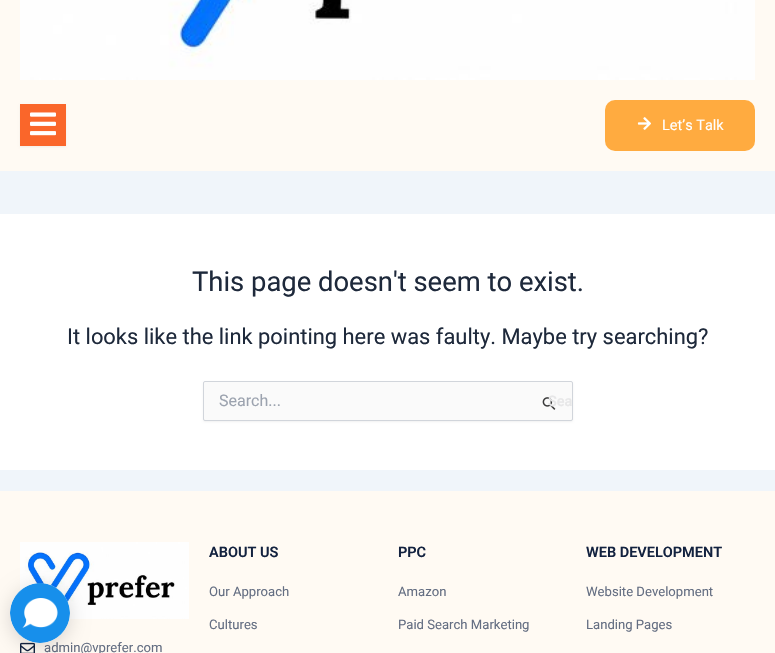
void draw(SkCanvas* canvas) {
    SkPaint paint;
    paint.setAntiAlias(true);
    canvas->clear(0xFFF0F5FA);
    paint.setColor(0xFFFFFAF3);
    canvas->drawRect(SkRect::MakeXYWH(0, 0, 775, 171), paint);
    canvas->drawImageRect(SkImages::DeferredFromEncodedData(SkData::MakeFromFileName("img1.png")), SkRect::MakeXYWH(20, 0, 735, 80), SkSamplingOptions());
    paint.setColor(0x0D000000);
    paint.setMaskFilter(SkMaskFilter::MakeBlur(kNormal_SkBlurStyle, 1));
    canvas->drawRect(SkRect::MakeXYWH(20, 105, 46, 42), paint);
    paint.setMaskFilter(nullptr);
    paint.setColor(0xFFFA662A);
    canvas->drawRect(SkRect::MakeXYWH(20, 104, 46, 42), paint);
    canvas->drawImageRect(SkImages::DeferredFromEncodedData(SkData::MakeFromFileName("img2.png")), SkRect::MakeXYWH(30, 112, 26, 24), SkSamplingOptions());
    paint.setColor(0xFFFFAB40);
    canvas->drawRoundRect(SkRect::MakeXYWH(605, 100, 150, 51), 10, 10, paint);
    canvas->drawImageRect(SkImages::DeferredFromEncodedData(SkData::MakeFromFileName("img3.png")), SkRect::MakeXYWH(637, 117, 14, 13), SkSamplingOptions());
    SkFont font1(fontMgr->matchFamilyStyle("Roboto", SkFontStyle::Normal()), 14.5f);
    font1.setSubpixel(true);
    paint.setColor(0xFFFFFFFF);
    canvas->drawString("Let’s Talk", 662, 130, font1, paint);
    canvas->drawRect(SkRect::MakeXYWH(0, 214, 775, 256), paint);
    SkFont font2(fontMgr->matchFamilyStyle("Roboto", SkFontStyle::Normal()), 27.4f);
    font2.setSubpixel(true);
    paint.setColor(0xFF1E293B);
    canvas->drawString("This page doesn't seem to exist.", 192, 291, font2, paint);
    SkFont font3(fontMgr->matchFamilyStyle("Roboto", SkFontStyle::Normal()), 21.9f);
    font3.setSubpixel(true);
    canvas->drawString("It looks like the link pointing here was faulty. Maybe try searching?", 67, 344, font3, paint);
    paint.setColor(0x0D000000);
    paint.setMaskFilter(SkMaskFilter::MakeBlur(kNormal_SkBlurStyle, 1));
    canvas->drawRoundRect(SkRect::MakeXYWH(203, 382, 370, 40), 2, 2, paint);
    paint.setMaskFilter(nullptr);
    paint.setColor(0xFFFAFAFA);
    canvas->drawRoundRect(SkRect::MakeXYWH(203.5f, 381.5f, 369, 39), 1.5f, 1.5f, paint);
    paint.setStyle(SkPaint::kStroke_Style);
    paint.setStrokeWidth(1);
    paint.setColor(0xFFD1D5DB);
    canvas->drawRoundRect(SkRect::MakeXYWH(203.5f, 381.5f, 369, 39), 1.5f, 1.5f, paint);
    SkFont font4(fontMgr->matchFamilyStyle("Roboto", SkFontStyle::Normal()), 16);
    font4.setSubpixel(true);
    paint.setStyle(SkPaint::kFill_Style);
    paint.setColor(0xFF9CA3AF);
    canvas->drawString("Search...", 219, 406, font4, paint);
    canvas->drawImageRect(SkImages::DeferredFromEncodedData(SkData::MakeFromFileName("img4.png")), SkRect::MakeXYWH(542, 397, 14, 13), SkSamplingOptions());
    SkFont font5(fontMgr->matchFamilyStyle("Roboto", SkFontStyle(500, SkFontStyle::kNormal_Width, SkFontStyle::kUpright_Slant)), 14.5f);
    font5.setSubpixel(true);
    paint.setColor(0xFFE7E7E8);
    canvas->drawString("Sea", 548, 406, font5, paint);
    paint.setColor(0xFFFFFAF3);
    canvas->drawRect(SkRect::MakeXYWH(0, 491, 775, 162), paint);
    SkFont font6(fontMgr->matchFamilyStyle("Roboto", SkFontStyle(600, SkFontStyle::kNormal_Width, SkFontStyle::kUpright_Slant)), 14.5f);
    font6.setSubpixel(true);
    paint.setColor(0xFF13223F);
    canvas->drawString("ABOUT US", 209, 557, font6, paint);
    SkFont font7(fontMgr->matchFamilyStyle("Roboto", SkFontStyle::Normal()), 13.1f);
    font7.setSubpixel(true);
    paint.setColor(0xFF646E82);
    canvas->drawString("Our Approach", 209, 596, font7, paint);
    canvas->drawString("Cultures", 209, 629, font7, paint);
    paint.setColor(0xFF13223F);
    canvas->drawString("PPC", 398, 557, font6, paint);
    paint.setColor(0xFF646E82);
    canvas->drawString("Amazon", 398, 596, font7, paint);
    canvas->drawString("Paid Search Marketing", 398, 629, font7, paint);
    paint.setColor(0xFF13223F);
    canvas->drawString("WEB DEVELOPMENT", 586, 557, font6, paint);
    paint.setColor(0xFF646E82);
    canvas->drawString("Website Development", 586, 596, font7, paint);
    canvas->drawString("Landing Pages", 586, 629, font7, paint);
    canvas->drawImageRect(SkImages::DeferredFromEncodedData(SkData::MakeFromFileName("img5.png")), SkRect::MakeXYWH(20, 542, 169, 77), SkSamplingOptions());
    canvas->drawImageRect(SkImages::DeferredFromEncodedData(SkData::MakeFromFileName("img6.png")), SkRect::MakeXYWH(20, 642, 15, 11), SkSamplingOptions());
    canvas->drawString("admin@vprefer.com", 44, 652, font7, paint);
    paint.setColor(0x2B000000);
    paint.setMaskFilter(SkMaskFilter::MakeBlur(kNormal_SkBlurStyle, 10));
    canvas->drawRoundRect(SkRect::MakeXYWH(11, 588, 58, 58), 29, 29, paint);
    paint.setMaskFilter(nullptr);
    canvas->drawImageRect(SkImages::DeferredFromEncodedData(SkData::MakeFromFileName("img7.png")), SkRect::MakeXYWH(10, 583, 60, 60), SkSamplingOptions());
}
